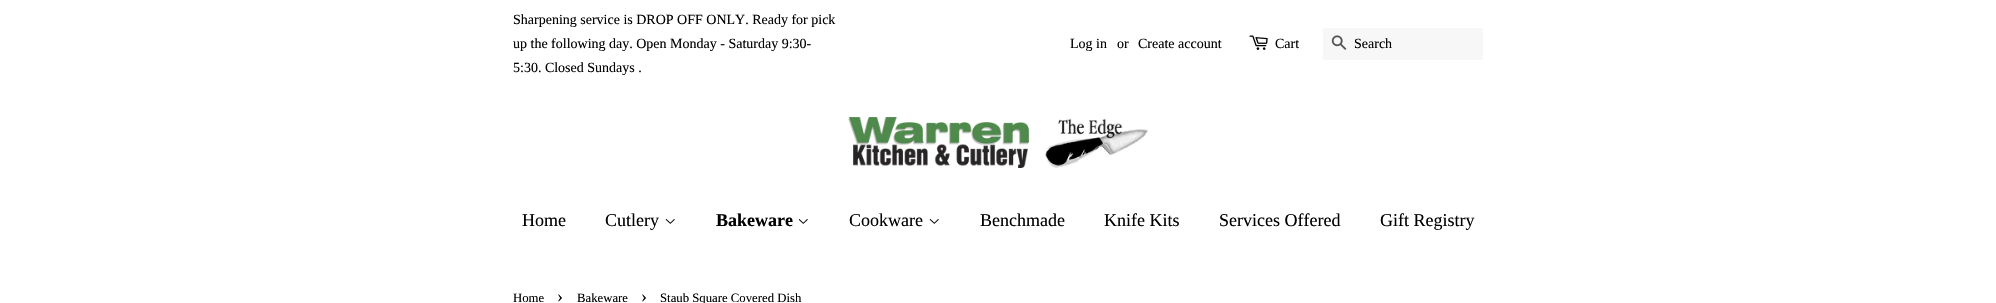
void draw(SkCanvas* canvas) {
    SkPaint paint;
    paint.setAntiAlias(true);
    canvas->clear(0xFFFFFFFF);
    SkFont font1(fontMgr->matchFamilyStyle("Liberation Serif", SkFontStyle::Normal()), 14);
    font1.setSubpixel(true);
    paint.setColor(0xFF000000);
    canvas->drawString("Sharpening service is DROP OFF ONLY. Ready for pick", 513, 24, font1, paint);
    canvas->drawString("up the following day. Open Monday - Saturday 9:30-", 513, 48, font1, paint);
    canvas->drawString("5:30. Closed Sundays .", 513, 72, font1, paint);
    canvas->drawString("Log in", 1070, 48, font1, paint);
    canvas->drawString("or", 1117, 48, font1, paint);
    canvas->drawString("Create account", 1138, 48, font1, paint);
    canvas->drawImageRect(SkImages::DeferredFromEncodedData(SkData::MakeFromFileName("img1.png")), SkRect::MakeXYWH(1249, 35, 19, 15), SkSamplingOptions());
    canvas->drawString("Cart", 1275, 48, font1, paint);
    paint.setColor(0xFFF7F7F7);
    canvas->drawRoundRect(SkRect::MakeXYWH(1323, 28, 160, 32), 2, 2, paint);
    canvas->drawImageRect(SkImages::DeferredFromEncodedData(SkData::MakeFromFileName("img2.png")), SkRect::MakeXYWH(1331, 35, 16, 15), SkSamplingOptions());
    paint.setColor(0xFF000000);
    canvas->drawString("Search", 1354, 48, font1, paint);
    canvas->drawImageRect(SkImages::DeferredFromEncodedData(SkData::MakeFromFileName("img3.png")), SkRect::MakeXYWH(848, 117, 300, 51), SkSamplingOptions());
    SkFont font2(fontMgr->matchFamilyStyle("Liberation Serif", SkFontStyle::Normal()), 18);
    font2.setSubpixel(true);
    canvas->drawString("Home", 522, 226, font2, paint);
    canvas->drawString("Cutlery", 605, 226, font2, paint);
    canvas->drawImageRect(SkImages::DeferredFromEncodedData(SkData::MakeFromFileName("img4.png")), SkRect::MakeXYWH(665, 219, 10, 5), SkSamplingOptions());
    SkFont font3(fontMgr->matchFamilyStyle("Liberation Serif", SkFontStyle::Bold()), 18);
    font3.setSubpixel(true);
    canvas->drawString("Bakeware", 716, 226, font3, paint);
    canvas->drawImageRect(SkImages::DeferredFromEncodedData(SkData::MakeFromFileName("img4.png")), SkRect::MakeXYWH(798, 219, 10, 5), SkSamplingOptions());
    canvas->drawString("Cookware", 849, 226, font2, paint);
    canvas->drawImageRect(SkImages::DeferredFromEncodedData(SkData::MakeFromFileName("img4.png")), SkRect::MakeXYWH(929, 219, 10, 5), SkSamplingOptions());
    canvas->drawString("Benchmade", 980, 226, font2, paint);
    canvas->drawString("Knife Kits", 1104, 226, font2, paint);
    canvas->drawString("Services Offered", 1219, 226, font2, paint);
    canvas->drawString("Gift Registry", 1380, 226, font2, paint);
    SkFont font4(fontMgr->matchFamilyStyle("Liberation Serif", SkFontStyle::Normal()), 12.75f);
    font4.setSubpixel(true);
    canvas->drawString("Home", 513, 302, font4, paint);
    canvas->drawString("›", 557, 302, font2, paint);
    canvas->drawString("Bakeware", 577, 302, font4, paint);
    canvas->drawString("›", 641, 302, font2, paint);
    canvas->drawString("Staub Square Covered Dish", 660, 302, font4, paint);
}
